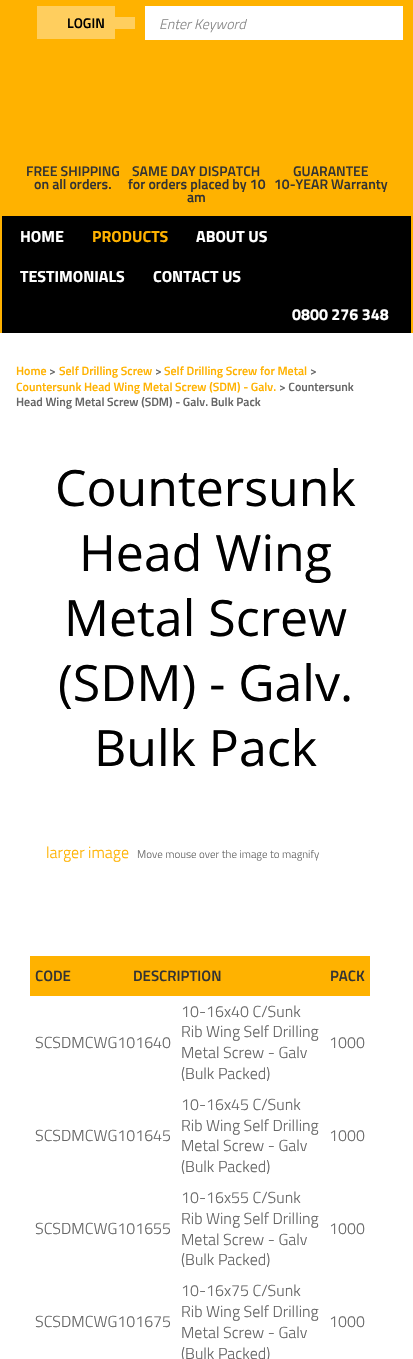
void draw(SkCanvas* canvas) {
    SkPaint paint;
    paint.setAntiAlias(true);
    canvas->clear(0xFFFFB200);
    paint.setColor(0xFFFFCE5E);
    canvas->drawRect(SkRect::MakeXYWH(37, 6, 78, 33), paint);
    SkFont font1(fontMgr->matchFamilyStyle("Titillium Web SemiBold", SkFontStyle(600, SkFontStyle::kNormal_Width, SkFontStyle::kUpright_Slant)), 14);
    font1.setSubpixel(true);
    paint.setColor(0xFF000000);
    canvas->drawString("LOGIN", 67, 28, font1, paint);
    paint.setColor(0xFFFFCE5E);
    canvas->drawRect(SkRect::MakeXYWH(115, 17, 20, 12), paint);
    paint.setColor(0xFFFFFFFF);
    canvas->drawRect(SkRect::MakeXYWH(145, 6, 258, 34), paint);
    SkFont font2(fontMgr->matchFamilyStyle("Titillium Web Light", SkFontStyle(300, SkFontStyle::kNormal_Width, SkFontStyle::kItalic_Slant)), 14);
    font2.setSubpixel(true);
    paint.setColor(0xFF888888);
    canvas->drawString("Enter Keyword", 159, 29, font2, paint);
    paint.setColor(0xFF333333);
    canvas->drawString("FREE SHIPPING", 26, 176, font1, paint);
    canvas->drawString("on all orders.", 34, 189, font1, paint);
    canvas->drawString("SAME DAY DISPATCH", 132, 176, font1, paint);
    canvas->drawString("for orders placed by 10", 128, 189, font1, paint);
    canvas->drawString("am", 187, 202, font1, paint);
    canvas->drawString("GUARANTEE", 293, 176, font1, paint);
    canvas->drawString("10-YEAR Warranty", 274, 189, font1, paint);
    paint.setColor(0xFF000000);
    canvas->drawRect(SkRect::MakeXYWH(2, 216, 409, 117), paint);
    SkFont font3(fontMgr->matchFamilyStyle("Titillium Web", SkFontStyle::Bold()), 16);
    font3.setSubpixel(true);
    paint.setColor(0xFFFFFFFF);
    canvas->drawString("HOME", 20, 242, font3, paint);
    paint.setColor(0xFFFFB200);
    canvas->drawString("PRODUCTS", 92, 242, font3, paint);
    paint.setColor(0xFFFFFFFF);
    canvas->drawString("ABOUT US", 196, 242, font3, paint);
    canvas->drawString("TESTIMONIALS", 20, 282, font3, paint);
    canvas->drawString("CONTACT US", 153, 282, font3, paint);
    canvas->drawString("0800 276 348", 292, 320, font3, paint);
    canvas->drawRect(SkRect::MakeXYWH(0, 333, 413, 1026), paint);
    SkFont font4(fontMgr->matchFamilyStyle("Titillium Web SemiBold", SkFontStyle(600, SkFontStyle::kNormal_Width, SkFontStyle::kUpright_Slant)), 12);
    font4.setSubpixel(true);
    paint.setColor(0xFFFFB200);
    canvas->drawString("Home", 16, 375, font4, paint);
    paint.setColor(0xFF666666);
    canvas->drawString(">", 49, 375, font4, paint);
    paint.setColor(0xFFFFB200);
    canvas->drawString("Self Drilling Screw", 59, 375, font4, paint);
    paint.setColor(0xFF666666);
    canvas->drawString(">", 155, 375, font4, paint);
    paint.setColor(0xFFFFB200);
    canvas->drawString("Self Drilling Screw for Metal", 164, 375, font4, paint);
    paint.setColor(0xFF666666);
    canvas->drawString(">", 310, 375, font4, paint);
    paint.setColor(0xFFFFB200);
    canvas->drawString("Countersunk Head Wing Metal Screw (SDM) - Galv.", 16, 391, font4, paint);
    paint.setColor(0xFF666666);
    canvas->drawString("> Countersunk", 279, 391, font4, paint);
    canvas->drawString("Head Wing Metal Screw (SDM) - Galv. Bulk Pack", 16, 406, font4, paint);
    SkFont font5(fontMgr->matchFamilyStyle("Open Sans", SkFontStyle::Normal()), 50);
    font5.setSubpixel(true);
    paint.setColor(0xFF000000);
    canvas->drawString("Countersunk", 55, 506, font5, paint);
    canvas->drawString("Head Wing", 79, 571, font5, paint);
    canvas->drawString("Metal Screw", 64, 636, font5, paint);
    canvas->drawString("(SDM) - Galv.", 58, 701, font5, paint);
    canvas->drawString("Bulk Pack", 94, 766, font5, paint);
    SkFont font6(fontMgr->matchFamilyStyle("Titillium Web Light", SkFontStyle(300, SkFontStyle::kNormal_Width, SkFontStyle::kUpright_Slant)), 16);
    font6.setSubpixel(true);
    paint.setColor(0xFFFFB200);
    canvas->drawString("larger image", 46, 858, font6, paint);
    SkFont font7(fontMgr->matchFamilyStyle("Titillium Web Light", SkFontStyle(300, SkFontStyle::kNormal_Width, SkFontStyle::kUpright_Slant)), 11);
    font7.setSubpixel(true);
    paint.setColor(0xFF666666);
    canvas->drawString("Move mouse over the image to magnify", 137, 858, font7, paint);
    paint.setColor(0xFFFFB200);
    canvas->drawRect(SkRect::MakeXYWH(30, 956, 340, 40), paint);
    SkFont font8(fontMgr->matchFamilyStyle("Titillium Web SemiBold", SkFontStyle(600, SkFontStyle::kNormal_Width, SkFontStyle::kUpright_Slant)), 15);
    font8.setSubpixel(true);
    paint.setColor(0xFF333333);
    canvas->drawString("CODE", 35, 981, font8, paint);
    canvas->drawString("DESCRIPTION", 133, 981, font8, paint);
    canvas->drawString("PACK", 330, 981, font8, paint);
    paint.setColor(0xFF666666);
    canvas->drawString("SCSDMCWG101640", 35, 1048, font6, paint);
    canvas->drawString("10-16x40 C/Sunk", 181, 1017, font6, paint);
    canvas->drawString("Rib Wing Self Drilling", 181, 1037, font6, paint);
    canvas->drawString("Metal Screw - Galv", 181, 1058, font6, paint);
    canvas->drawString("(Bulk Packed)", 181, 1079, font6, paint);
    canvas->drawString("1000", 329, 1048, font6, paint);
    canvas->drawString("SCSDMCWG101645", 35, 1141, font6, paint);
    canvas->drawString("10-16x45 C/Sunk", 181, 1110, font6, paint);
    canvas->drawString("Rib Wing Self Drilling", 181, 1131, font6, paint);
    canvas->drawString("Metal Screw - Galv", 181, 1151, font6, paint);
    canvas->drawString("(Bulk Packed)", 181, 1172, font6, paint);
    canvas->drawString("1000", 329, 1141, font6, paint);
    canvas->drawString("SCSDMCWG101655", 35, 1234, font6, paint);
    canvas->drawString("10-16x55 C/Sunk", 181, 1203, font6, paint);
    canvas->drawString("Rib Wing Self Drilling", 181, 1224, font6, paint);
    canvas->drawString("Metal Screw - Galv", 181, 1245, font6, paint);
    canvas->drawString("(Bulk Packed)", 181, 1265, font6, paint);
    canvas->drawString("1000", 329, 1234, font6, paint);
    canvas->drawString("SCSDMCWG101675", 35, 1327, font6, paint);
    canvas->drawString("10-16x75 C/Sunk", 181, 1296, font6, paint);
    canvas->drawString("Rib Wing Self Drilling", 181, 1317, font6, paint);
    canvas->drawString("Metal Screw - Galv", 181, 1338, font6, paint);
    canvas->drawString("(Bulk Packed)", 181, 1359, font6, paint);
    canvas->drawString("1000", 329, 1327, font6, paint);
}
